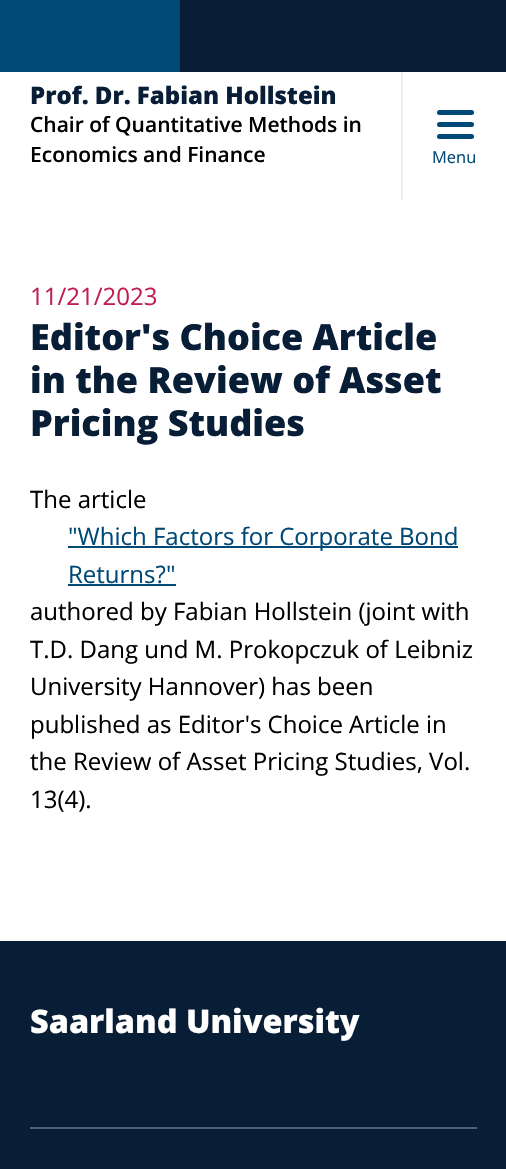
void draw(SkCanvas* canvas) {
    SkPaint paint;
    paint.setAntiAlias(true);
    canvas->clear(0xFFFFFFFF);
    paint.setColor(0xFF081D36);
    canvas->drawRect(SkRect::MakeXYWH(180, 0, 326, 72), paint);
    paint.setColor(0xFF004876);
    canvas->drawRect(SkRect::MakeXYWH(0, 0, 180, 72), paint);
    SkFont font1(fontMgr->matchFamilyStyle("Open Sans", SkFontStyle(800, SkFontStyle::kNormal_Width, SkFontStyle::kUpright_Slant)), 24);
    font1.setSubpixel(true);
    paint.setColor(0xFF081D36);
    canvas->drawString("Prof. Dr. Fabian Hollstein", 30, 104, font1, paint);
    SkFont font2(fontMgr->matchFamilyStyle("Open Sans", SkFontStyle(600, SkFontStyle::kNormal_Width, SkFontStyle::kUpright_Slant)), 21);
    font2.setSubpixel(true);
    paint.setColor(0xFF000000);
    canvas->drawString("Chair of Quantitative Methods in", 30, 132, font2, paint);
    canvas->drawString("Economics and Finance", 30, 162, font2, paint);
    paint.setColor(0xFFEEEEEE);
    canvas->drawRect(SkRect::MakeXYWH(401, 72, 2, 128), paint);
    paint.setColor(0xFF004876);
    canvas->drawRoundRect(SkRect::MakeXYWH(437, 110, 37, 5), 2.5f, 2.5f, paint);
    canvas->drawRoundRect(SkRect::MakeXYWH(437, 122, 37, 5), 2.5f, 2.5f, paint);
    canvas->drawRoundRect(SkRect::MakeXYWH(437, 134, 37, 5), 2.5f, 2.5f, paint);
    SkFont font3(fontMgr->matchFamilyStyle("Open Sans", SkFontStyle::Normal()), 16.5f);
    font3.setSubpixel(true);
    canvas->drawString("Menu", 432, 163, font3, paint);
    SkFont font4(fontMgr->matchFamilyStyle("Open Sans", SkFontStyle::Normal()), 24);
    font4.setSubpixel(true);
    paint.setColor(0xFFC01F50);
    canvas->drawString("11/21/2023", 30, 305, font4, paint);
    SkFont font5(fontMgr->matchFamilyStyle("Open Sans", SkFontStyle(800, SkFontStyle::kNormal_Width, SkFontStyle::kUpright_Slant)), 36);
    font5.setSubpixel(true);
    paint.setColor(0xFF081D36);
    canvas->drawString("Editor's Choice Article", 30, 350, font5, paint);
    canvas->drawString("in the Review of Asset", 30, 393, font5, paint);
    canvas->drawString("Pricing Studies", 30, 436, font5, paint);
    paint.setColor(0xFF000000);
    canvas->drawString("The article", 30, 508, font4, paint);
    paint.setColor(0xFF004876);
    canvas->drawRect(SkRect::MakeXYWH(68, 546, 390, 2), paint);
    canvas->drawString("\"Which Factors for Corporate Bond", 68, 545, font4, paint);
    canvas->drawString("Returns?\"", 68, 583, font4, paint);
    canvas->drawRect(SkRect::MakeXYWH(68, 584, 108, 2), paint);
    paint.setColor(0xFF000000);
    canvas->drawString("authored by Fabian Hollstein (joint with", 30, 620, font4, paint);
    canvas->drawString("T.D. Dang und M. Prokopczuk of Leibniz", 30, 658, font4, paint);
    canvas->drawString("University Hannover) has been", 30, 695, font4, paint);
    canvas->drawString("published as Editor's Choice Article in", 30, 733, font4, paint);
    canvas->drawString("the Review of Asset Pricing Studies, Vol.", 30, 770, font4, paint);
    canvas->drawString("13(4).", 30, 808, font4, paint);
    paint.setColor(0xFF081D36);
    canvas->drawRect(SkRect::MakeXYWH(0, 941, 506, 228), paint);
    SkFont font6(fontMgr->matchFamilyStyle("Open Sans", SkFontStyle(800, SkFontStyle::kNormal_Width, SkFontStyle::kUpright_Slant)), 32.4f);
    font6.setSubpixel(true);
    paint.setColor(0xFFFFFFFF);
    canvas->drawString("Saarland University", 30, 1033, font6, paint);
    paint.setColor(0xFF526172);
    canvas->drawRect(SkRect::MakeXYWH(30, 1127, 447, 2), paint);
}
